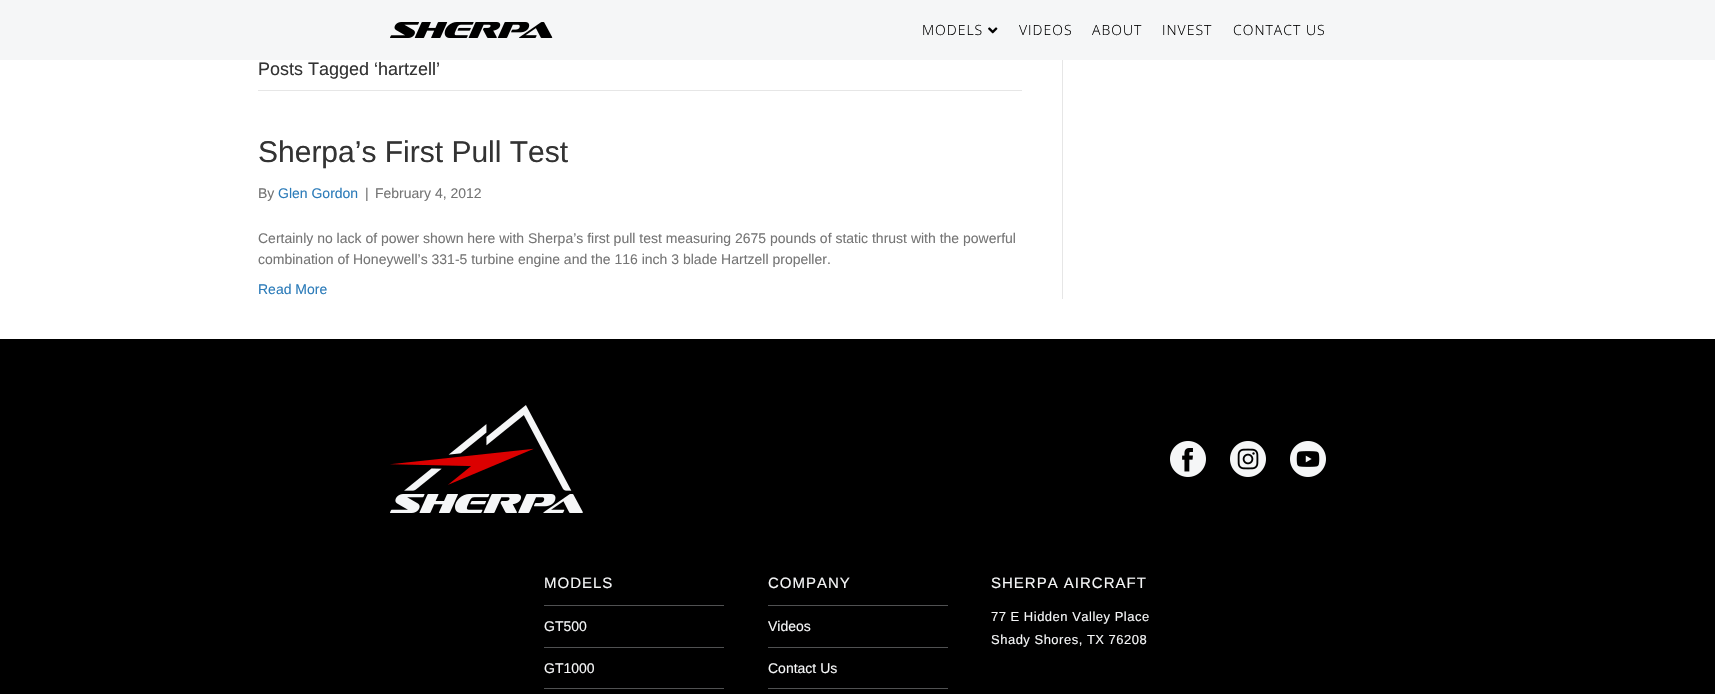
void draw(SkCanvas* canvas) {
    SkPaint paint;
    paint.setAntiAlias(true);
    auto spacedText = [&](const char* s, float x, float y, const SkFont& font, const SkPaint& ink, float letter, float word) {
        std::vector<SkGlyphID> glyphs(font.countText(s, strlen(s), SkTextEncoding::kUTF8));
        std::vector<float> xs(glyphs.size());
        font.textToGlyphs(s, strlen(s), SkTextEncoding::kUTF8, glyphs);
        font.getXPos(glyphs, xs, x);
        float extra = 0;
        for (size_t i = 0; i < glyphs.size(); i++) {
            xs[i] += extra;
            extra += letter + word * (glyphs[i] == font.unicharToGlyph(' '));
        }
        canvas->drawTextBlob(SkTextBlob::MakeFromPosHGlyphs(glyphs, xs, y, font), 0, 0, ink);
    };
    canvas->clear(0xFFFFFFFF);
    paint.setColor(0xFFF5F6F7);
    canvas->drawRect(SkRect::MakeXYWH(0, 0, 1715, 60), paint);
    canvas->drawImageRect(SkImages::DeferredFromEncodedData(SkData::MakeFromFileName("img1.png")), SkRect::MakeXYWH(390, 22, 163, 16), SkSamplingOptions());
    SkFont font1(fontMgr->matchFamilyStyle("Open Sans", SkFontStyle(300, SkFontStyle::kNormal_Width, SkFontStyle::kUpright_Slant)), 14);
    font1.setSubpixel(true);
    paint.setColor(0xFF000000);
    spacedText("MODELS", 922, 35, font1, paint, 1, 0);
    canvas->drawImageRect(SkImages::DeferredFromEncodedData(SkData::MakeFromFileName("img2.png")), SkRect::MakeXYWH(988, 27, 10, 7), SkSamplingOptions());
    spacedText("VIDEOS", 1019, 35, font1, paint, 1, 0);
    spacedText("ABOUT", 1092, 35, font1, paint, 1, 0);
    spacedText("INVEST", 1162, 35, font1, paint, 1, 0);
    spacedText("CONTACT US", 1233, 35, font1, paint, 1, 0);
    paint.setColor(0xFFE6E6E6);
    canvas->drawRect(SkRect::MakeXYWH(1062, 60, 1, 239), paint);
    canvas->drawRect(SkRect::MakeXYWH(258, 90, 764, 1), paint);
    SkFont font2(fontMgr->matchFamilyStyle("Liberation Sans", SkFontStyle::Normal()), 18);
    font2.setSubpixel(true);
    paint.setColor(0xFF333333);
    canvas->drawString("Posts Tagged ‘hartzell’", 258, 75, font2, paint);
    SkFont font3(fontMgr->matchFamilyStyle("Liberation Sans", SkFontStyle::Normal()), 30);
    font3.setSubpixel(true);
    canvas->drawString("Sherpa’s First Pull Test", 258, 162, font3, paint);
    SkFont font4(fontMgr->matchFamilyStyle("Liberation Sans", SkFontStyle::Normal()), 14);
    font4.setSubpixel(true);
    paint.setColor(0xFF757575);
    canvas->drawString("By", 258, 198, font4, paint);
    paint.setColor(0xFF2B7BB9);
    canvas->drawString("Glen Gordon", 278, 198, font4, paint);
    paint.setColor(0xFF757575);
    canvas->drawString("|", 365, 198, font4, paint);
    canvas->drawString("February 4, 2012", 375, 198, font4, paint);
    canvas->drawString("Certainly no lack of power shown here with Sherpa’s first pull test measuring 2675 pounds of static thrust with the powerful", 258, 243, font4, paint);
    canvas->drawString("combination of Honeywell’s 331-5 turbine engine and the 116 inch 3 blade Hartzell propeller.", 258, 264, font4, paint);
    paint.setColor(0xFF2B7BB9);
    canvas->drawString("Read More", 258, 294, font4, paint);
    paint.setColor(0xFF000000);
    canvas->drawRect(SkRect::MakeXYWH(0, 339, 1715, 355), paint);
    canvas->drawImageRect(SkImages::DeferredFromEncodedData(SkData::MakeFromFileName("img3.png")), SkRect::MakeXYWH(390, 405, 193, 108), SkSamplingOptions());
    canvas->drawImageRect(SkImages::DeferredFromEncodedData(SkData::MakeFromFileName("img4.png")), SkRect::MakeXYWH(1170, 441, 36, 36), SkSamplingOptions());
    canvas->drawImageRect(SkImages::DeferredFromEncodedData(SkData::MakeFromFileName("img5.png")), SkRect::MakeXYWH(1230, 441, 36, 36), SkSamplingOptions());
    canvas->drawImageRect(SkImages::DeferredFromEncodedData(SkData::MakeFromFileName("img6.png")), SkRect::MakeXYWH(1290, 441, 36, 36), SkSamplingOptions());
    SkFont font5(fontMgr->matchFamilyStyle("Liberation Sans", SkFontStyle::Normal()), 15);
    font5.setSubpixel(true);
    paint.setColor(0xFFF5F6F7);
    spacedText("MODELS", 544, 588, font5, paint, 1, 0);
    paint.setColor(0xFF505152);
    canvas->drawRect(SkRect::MakeXYWH(544, 605, 180, 1), paint);
    paint.setColor(0xFFF5F6F7);
    canvas->drawString("GT500", 544, 631, font4, paint);
    paint.setColor(0xFF505152);
    canvas->drawRect(SkRect::MakeXYWH(544, 647, 180, 1), paint);
    canvas->drawRect(SkRect::MakeXYWH(544, 688, 180, 1), paint);
    paint.setColor(0xFFF5F6F7);
    canvas->drawString("GT1000", 544, 673, font4, paint);
    spacedText("COMPANY", 768, 588, font5, paint, 1, 0);
    paint.setColor(0xFF505152);
    canvas->drawRect(SkRect::MakeXYWH(768, 605, 180, 1), paint);
    paint.setColor(0xFFF5F6F7);
    canvas->drawString("Videos", 768, 631, font4, paint);
    paint.setColor(0xFF505152);
    canvas->drawRect(SkRect::MakeXYWH(768, 647, 180, 1), paint);
    paint.setColor(0xFFF5F6F7);
    canvas->drawString("Contact Us", 768, 673, font4, paint);
    paint.setColor(0xFF505152);
    canvas->drawRect(SkRect::MakeXYWH(768, 688, 180, 1), paint);
    paint.setColor(0xFFF5F6F7);
    spacedText("SHERPA AIRCRAFT", 991, 588, font5, paint, 1, 0);
    SkFont font6(fontMgr->matchFamilyStyle("Liberation Sans", SkFontStyle::Normal()), 13);
    font6.setSubpixel(true);
    spacedText("77 E Hidden Valley Place", 991, 621, font6, paint, 0.5f, 0);
    spacedText("Shady Shores, TX 76208", 991, 644, font6, paint, 0.5f, 0);
}
